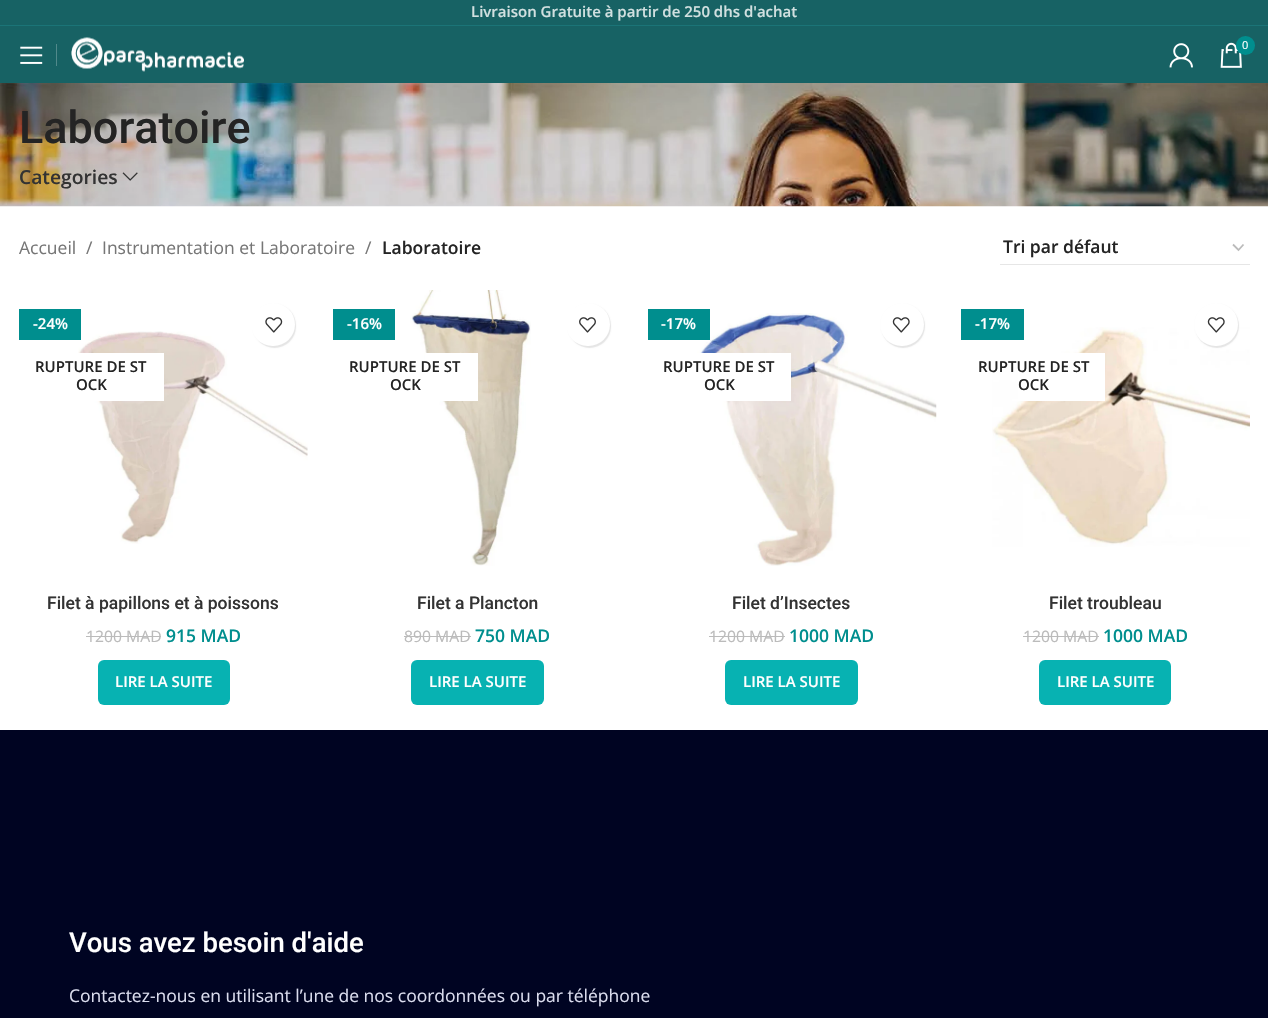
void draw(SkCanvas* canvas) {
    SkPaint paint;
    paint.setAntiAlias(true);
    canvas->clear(0xFFFFFFFF);
    paint.setColor(0xFF176264);
    canvas->drawRect(SkRect::MakeXYWH(0, 0, 1268, 25), paint);
    paint.setColor(0xFF1B7477);
    canvas->drawRect(SkRect::MakeXYWH(0, 25, 1268, 1), paint);
    SkFont font1(fontMgr->matchFamilyStyle("Open Sans", SkFontStyle(600, SkFontStyle::kNormal_Width, SkFontStyle::kUpright_Slant)), 15);
    font1.setSubpixel(true);
    paint.setColor(0xFFD1E0E0);
    canvas->drawString("Livraison Gratuite à partir de 250 dhs d'achat", 471, 17, font1, paint);
    paint.setColor(0xFF176264);
    canvas->drawRect(SkRect::MakeXYWH(0, 26, 1268, 57), paint);
    canvas->drawImageRect(SkImages::DeferredFromEncodedData(SkData::MakeFromFileName("img1.png")), SkRect::MakeXYWH(20, 46, 23, 18), SkSamplingOptions());
    paint.setColor(0xFF51898B);
    canvas->drawRect(SkRect::MakeXYWH(56, 44, 1, 22), paint);
    canvas->drawImageRect(SkImages::DeferredFromEncodedData(SkData::MakeFromFileName("img2.png")), SkRect::MakeXYWH(71, 37, 173, 35), SkSamplingOptions());
    canvas->drawImageRect(SkImages::DeferredFromEncodedData(SkData::MakeFromFileName("img3.png")), SkRect::MakeXYWH(1169, 43, 24, 25), SkSamplingOptions());
    canvas->drawImageRect(SkImages::DeferredFromEncodedData(SkData::MakeFromFileName("img4.png")), SkRect::MakeXYWH(1220, 42, 22, 26), SkSamplingOptions());
    paint.setColor(0xFF008E8E);
    canvas->drawCircle(1245.5f, 45.5f, 9.5f, paint);
    SkFont font2(fontMgr->matchFamilyStyle("Open Sans", SkFontStyle::Normal()), 11);
    font2.setSubpixel(true);
    paint.setColor(0xFFFFFFFF);
    canvas->drawString("0", 1242, 49, font2, paint);
    canvas->drawImageRect(SkImages::DeferredFromEncodedData(SkData::MakeFromFileName("img5.png")), SkRect::MakeXYWH(0, 83, 1268, 124), SkSamplingOptions());
    SkFont font3(fontMgr->matchFamilyStyle("Roboto", SkFontStyle(500, SkFontStyle::kNormal_Width, SkFontStyle::kUpright_Slant)), 45);
    font3.setSubpixel(true);
    paint.setColor(0xFF242424);
    canvas->drawString("Laboratoire", 19, 143, font3, paint);
    SkFont font4(fontMgr->matchFamilyStyle("Open Sans", SkFontStyle(600, SkFontStyle::kNormal_Width, SkFontStyle::kUpright_Slant)), 19.25f);
    font4.setSubpixel(true);
    paint.setColor(0xFF333333);
    canvas->drawString("Categories", 19, 184, font4, paint);
    canvas->drawImageRect(SkImages::DeferredFromEncodedData(SkData::MakeFromFileName("img6.png")), SkRect::MakeXYWH(122, 172, 16, 9), SkSamplingOptions());
    SkFont font5(fontMgr->matchFamilyStyle("Open Sans", SkFontStyle::Normal()), 17.5f);
    font5.setSubpixel(true);
    paint.setColor(0xFF767676);
    canvas->drawString("Accueil", 19, 254, font5, paint);
    canvas->drawString("/", 86, 254, font5, paint);
    canvas->drawString("Instrumentation et Laboratoire", 102, 254, font5, paint);
    canvas->drawString("/", 365, 254, font5, paint);
    SkFont font6(fontMgr->matchFamilyStyle("Open Sans", SkFontStyle(600, SkFontStyle::kNormal_Width, SkFontStyle::kUpright_Slant)), 17.5f);
    font6.setSubpixel(true);
    paint.setColor(0xFF242424);
    canvas->drawString("Laboratoire", 382, 254, font6, paint);
    paint.setStyle(SkPaint::kStroke_Style);
    paint.setStrokeWidth(1.8f);
    paint.setColor(0xFFBBBBBB);
    canvas->drawPath(SkPathBuilder().moveTo(1233, 244.5f).lineTo(1238.5f, 250).lineTo(1243.5f, 244.5f).detach(), paint);
    paint.setStyle(SkPaint::kFill_Style);
    paint.setColor(0xFFE6E6E6);
    canvas->drawRect(SkRect::MakeXYWH(1000, 264, 250, 1), paint);
    canvas->save();
    canvas->clipRect(SkRect::MakeXYWH(1003, 238, 222, 20));
    paint.setColor(0xFF242424);
    canvas->drawString("Tri par défaut", 1003, 253, font6, paint);
    canvas->restore();
    canvas->drawImageRect(SkImages::DeferredFromEncodedData(SkData::MakeFromFileName("img7.png")), SkRect::MakeXYWH(78, 331, 230, 213), SkSamplingOptions());
    paint.setColor(0xFF008E8E);
    canvas->drawRect(SkRect::MakeXYWH(19, 309, 62, 31), paint);
    paint.setColor(0xFFFFFFFF);
    canvas->drawString("-24%", 33, 329, font1, paint);
    canvas->drawRect(SkRect::MakeXYWH(78, 353, 86, 48), paint);
    paint.setColor(0xFF242424);
    canvas->drawString("RUPTURE DE ST", 35, 372, font1, paint);
    canvas->drawString("OCK", 76, 390, font1, paint);
    paint.setColor(0x1A000000);
    paint.setMaskFilter(SkMaskFilter::MakeBlur(kNormal_SkBlurStyle, 0.5f));
    canvas->drawRoundRect(SkRect::MakeXYWH(253, 304, 43, 44), 21.5f, 21.5f, paint);
    paint.setMaskFilter(nullptr);
    paint.setColor(0xFFFFFFFF);
    canvas->drawRoundRect(SkRect::MakeXYWH(251, 303, 44, 43), 21.5f, 21.5f, paint);
    canvas->drawImageRect(SkImages::DeferredFromEncodedData(SkData::MakeFromFileName("img8.png")), SkRect::MakeXYWH(265, 317, 18, 16), SkSamplingOptions());
    SkFont font7(fontMgr->matchFamilyStyle("Roboto", SkFontStyle(500, SkFontStyle::kNormal_Width, SkFontStyle::kUpright_Slant)), 17.5f);
    font7.setSubpixel(true);
    paint.setColor(0xFF333333);
    canvas->drawString("Filet à papillons et à poissons", 47, 609, font7, paint);
    SkFont font8(fontMgr->matchFamilyStyle("Open Sans", SkFontStyle::Normal()), 15.75f);
    font8.setSubpixel(true);
    paint.setColor(0xFFBBBBBB);
    canvas->drawString("1200 MAD", 86, 642, font8, paint);
    canvas->drawRect(SkRect::MakeXYWH(86, 636, 75, 1), paint);
    paint.setColor(0xFF008E8E);
    canvas->drawString("915 MAD", 166, 642, font6, paint);
    paint.setColor(0xFF07B2B2);
    canvas->drawRoundRect(SkRect::MakeXYWH(98, 660, 132, 45), 6, 6, paint);
    paint.setColor(0xFFFFFFFF);
    canvas->drawString("LIRE LA SUITE", 115, 687, font1, paint);
    paint.setColor(0xFF008E8E);
    canvas->drawRect(SkRect::MakeXYWH(333, 309, 62, 31), paint);
    paint.setColor(0xFFFFFFFF);
    canvas->drawString("-16%", 347, 329, font1, paint);
    canvas->drawImageRect(SkImages::DeferredFromEncodedData(SkData::MakeFromFileName("img9.png")), SkRect::MakeXYWH(410, 290, 121, 276), SkSamplingOptions());
    canvas->drawRect(SkRect::MakeXYWH(425, 353, 53, 48), paint);
    paint.setColor(0xFF242424);
    canvas->drawString("RUPTURE DE ST", 349, 372, font1, paint);
    canvas->drawString("OCK", 390, 390, font1, paint);
    paint.setColor(0x1A000000);
    paint.setMaskFilter(SkMaskFilter::MakeBlur(kNormal_SkBlurStyle, 0.5f));
    canvas->drawRoundRect(SkRect::MakeXYWH(568, 304, 43, 44), 21.5f, 21.5f, paint);
    paint.setMaskFilter(nullptr);
    paint.setColor(0xFFFFFFFF);
    canvas->drawRoundRect(SkRect::MakeXYWH(566, 303, 44, 43), 21.5f, 21.5f, paint);
    canvas->drawImageRect(SkImages::DeferredFromEncodedData(SkData::MakeFromFileName("img10.png")), SkRect::MakeXYWH(579, 317, 17, 16), SkSamplingOptions());
    paint.setColor(0xFF333333);
    canvas->drawString("Filet a Plancton", 417, 609, font7, paint);
    paint.setColor(0xFFBBBBBB);
    canvas->drawString("890 MAD", 404, 642, font8, paint);
    canvas->drawRect(SkRect::MakeXYWH(404, 636, 67, 1), paint);
    paint.setColor(0xFF008E8E);
    canvas->drawString("750 MAD", 475, 642, font6, paint);
    paint.setColor(0xFF07B2B2);
    canvas->drawRoundRect(SkRect::MakeXYWH(411, 660, 133, 45), 6, 6, paint);
    paint.setColor(0xFFFFFFFF);
    canvas->drawString("LIRE LA SUITE", 429, 687, font1, paint);
    canvas->drawImageRect(SkImages::DeferredFromEncodedData(SkData::MakeFromFileName("img11.png")), SkRect::MakeXYWH(697, 313, 240, 253), SkSamplingOptions());
    paint.setColor(0xFF008E8E);
    canvas->drawRect(SkRect::MakeXYWH(648, 309, 62, 31), paint);
    paint.setColor(0xFFFFFFFF);
    canvas->drawString("-17%", 661, 329, font1, paint);
    canvas->drawRect(SkRect::MakeXYWH(697, 353, 94, 48), paint);
    paint.setColor(0xFF242424);
    canvas->drawString("RUPTURE DE ST", 663, 372, font1, paint);
    canvas->drawString("OCK", 704, 390, font1, paint);
    paint.setColor(0x1A000000);
    paint.setMaskFilter(SkMaskFilter::MakeBlur(kNormal_SkBlurStyle, 0.5f));
    canvas->drawRoundRect(SkRect::MakeXYWH(881, 304, 44, 44), 22, 22, paint);
    paint.setMaskFilter(nullptr);
    paint.setColor(0xFFFFFFFF);
    canvas->drawRoundRect(SkRect::MakeXYWH(880, 303, 44, 43), 21.5f, 21.5f, paint);
    canvas->drawImageRect(SkImages::DeferredFromEncodedData(SkData::MakeFromFileName("img12.png")), SkRect::MakeXYWH(892, 317, 18, 16), SkSamplingOptions());
    paint.setColor(0xFF333333);
    canvas->drawString("Filet d’Insectes", 732, 609, font7, paint);
    paint.setColor(0xFFBBBBBB);
    canvas->drawString("1200 MAD", 709, 642, font8, paint);
    canvas->drawRect(SkRect::MakeXYWH(709, 636, 76, 1), paint);
    paint.setColor(0xFF008E8E);
    canvas->drawString("1000 MAD", 789, 642, font6, paint);
    paint.setColor(0xFF07B2B2);
    canvas->drawRoundRect(SkRect::MakeXYWH(725, 660, 133, 45), 6, 6, paint);
    paint.setColor(0xFFFFFFFF);
    canvas->drawString("LIRE LA SUITE", 743, 687, font1, paint);
    canvas->drawImageRect(SkImages::DeferredFromEncodedData(SkData::MakeFromFileName("img13.png")), SkRect::MakeXYWH(992, 327, 258, 220), SkSamplingOptions());
    paint.setColor(0xFF008E8E);
    canvas->drawRect(SkRect::MakeXYWH(961, 309, 63, 31), paint);
    paint.setColor(0xFFFFFFFF);
    canvas->drawString("-17%", 975, 329, font1, paint);
    canvas->drawRect(SkRect::MakeXYWH(1018, 353, 87, 48), paint);
    paint.setColor(0xFF242424);
    canvas->drawString("RUPTURE DE ST", 978, 372, font1, paint);
    canvas->drawString("OCK", 1018, 390, font1, paint);
    paint.setColor(0x1A000000);
    paint.setMaskFilter(SkMaskFilter::MakeBlur(kNormal_SkBlurStyle, 0.5f));
    canvas->drawRoundRect(SkRect::MakeXYWH(1195, 304, 44, 44), 22, 22, paint);
    paint.setMaskFilter(nullptr);
    paint.setColor(0xFFFFFFFF);
    canvas->drawRoundRect(SkRect::MakeXYWH(1194, 303, 44, 43), 21.5f, 21.5f, paint);
    canvas->drawImageRect(SkImages::DeferredFromEncodedData(SkData::MakeFromFileName("img12.png")), SkRect::MakeXYWH(1207, 317, 18, 16), SkSamplingOptions());
    paint.setColor(0xFF333333);
    canvas->drawString("Filet troubleau", 1049, 609, font7, paint);
    paint.setColor(0xFFBBBBBB);
    canvas->drawString("1200 MAD", 1023, 642, font8, paint);
    canvas->drawRect(SkRect::MakeXYWH(1023, 636, 76, 1), paint);
    paint.setColor(0xFF008E8E);
    canvas->drawString("1000 MAD", 1103, 642, font6, paint);
    paint.setColor(0xFF07B2B2);
    canvas->drawRoundRect(SkRect::MakeXYWH(1039, 660, 132, 45), 6, 6, paint);
    paint.setColor(0xFFFFFFFF);
    canvas->drawString("LIRE LA SUITE", 1057, 687, font1, paint);
    paint.setColor(0xFF000422);
    canvas->drawRect(SkRect::MakeXYWH(0, 730, 1268, 288), paint);
    SkFont font9(fontMgr->matchFamilyStyle("Roboto", SkFontStyle(500, SkFontStyle::kNormal_Width, SkFontStyle::kUpright_Slant)), 27.5f);
    font9.setSubpixel(true);
    paint.setColor(0xFFFFFFFF);
    canvas->drawString("Vous avez besoin d'aide", 69, 952, font9, paint);
    paint.setColor(0xFFDBDDEE);
    canvas->drawString("Contactez-nous en utilisant l’une de nos coordonnées ou par téléphone", 69, 1002, font5, paint);
}
